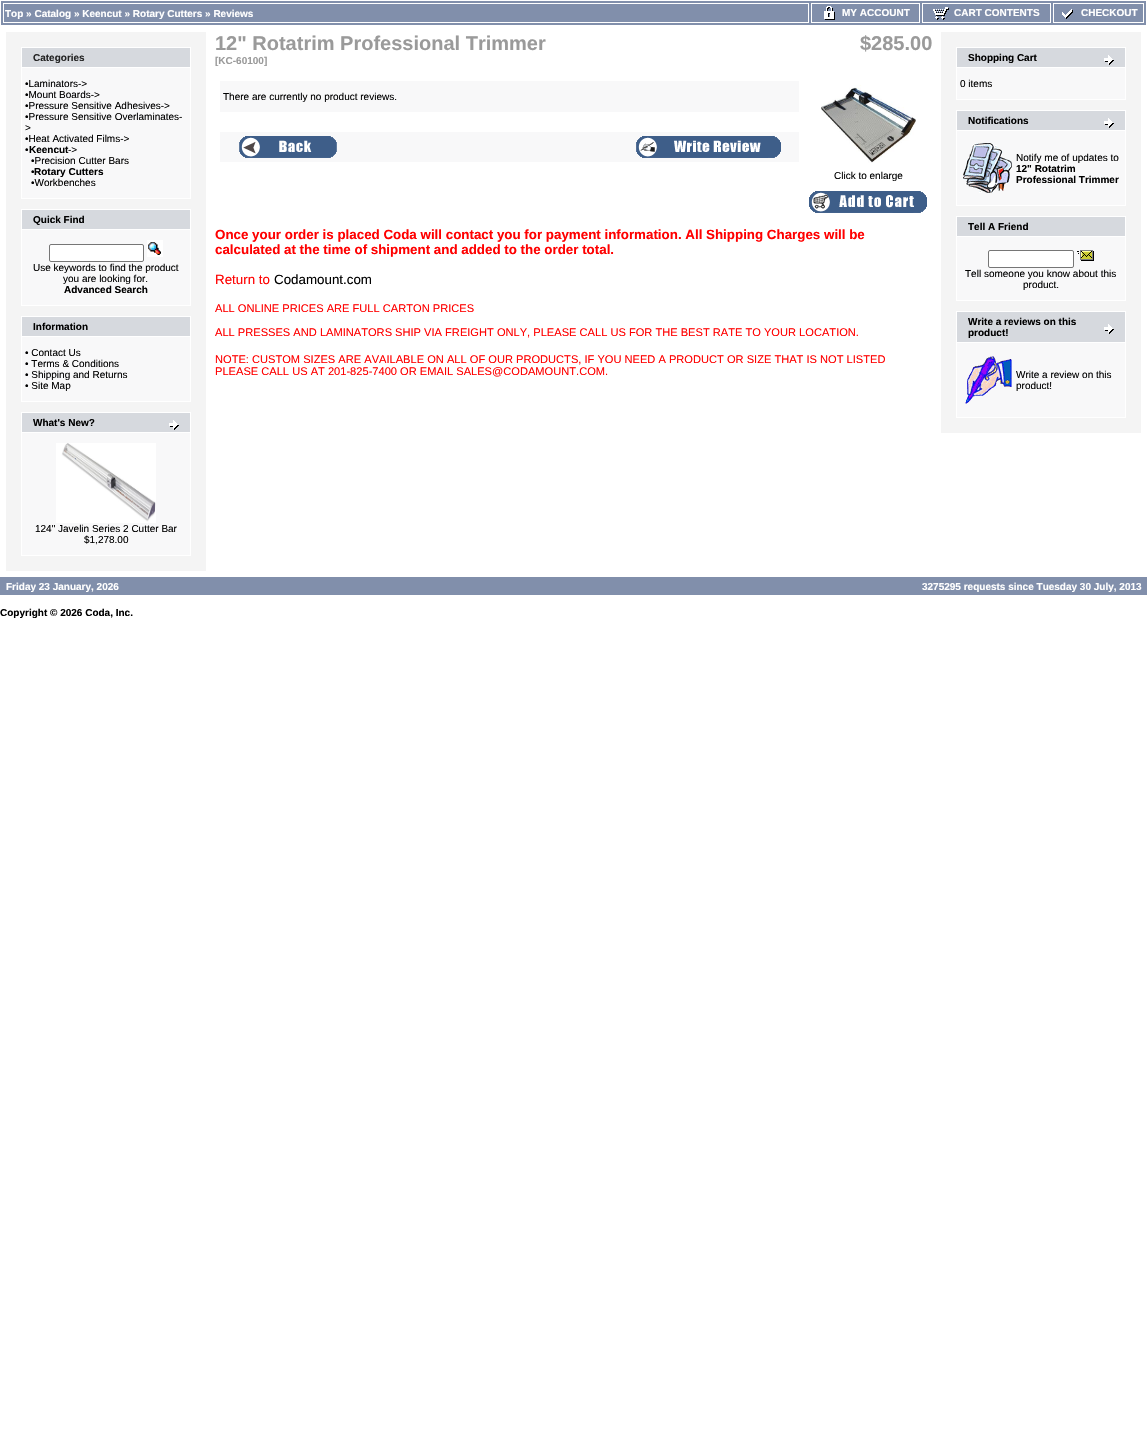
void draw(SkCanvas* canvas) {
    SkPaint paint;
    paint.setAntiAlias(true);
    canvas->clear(0xFFFFFFFF);
    paint.setColor(0xFF818FAB);
    canvas->drawRect(SkRect::MakeXYWH(1, 1, 1145, 24), paint);
    paint.setStyle(SkPaint::kStroke_Style);
    paint.setStrokeWidth(1);
    paint.setColor(0xFFFFFFFF);
    canvas->drawRect(SkRect::MakeXYWH(3.5f, 3.5f, 805, 19), paint);
    SkFont font1(fontMgr->matchFamilyStyle("Liberation Sans", SkFontStyle::Bold()), 10);
    font1.setSubpixel(true);
    paint.setStyle(SkPaint::kFill_Style);
    canvas->drawString("Top » Catalog » Keencut » Rotary Cutters » Reviews", 5, 17, font1, paint);
    paint.setStyle(SkPaint::kStroke_Style);
    canvas->drawRect(SkRect::MakeXYWH(811.5f, 3.5f, 108, 19), paint);
    canvas->drawImageRect(SkImages::DeferredFromEncodedData(SkData::MakeFromFileName("img1.png")), SkRect::MakeXYWH(824, 6, 11, 14), SkSamplingOptions());
    paint.setStyle(SkPaint::kFill_Style);
    canvas->drawString("MY ACCOUNT", 842, 16, font1, paint);
    paint.setStyle(SkPaint::kStroke_Style);
    canvas->drawRect(SkRect::MakeXYWH(922.5f, 3.5f, 128, 19), paint);
    canvas->drawImageRect(SkImages::DeferredFromEncodedData(SkData::MakeFromFileName("img2.png")), SkRect::MakeXYWH(933, 7, 16, 13), SkSamplingOptions());
    paint.setStyle(SkPaint::kFill_Style);
    canvas->drawString("CART CONTENTS", 954, 16, font1, paint);
    paint.setStyle(SkPaint::kStroke_Style);
    canvas->drawRect(SkRect::MakeXYWH(1053.5f, 3.5f, 90, 19), paint);
    canvas->drawImageRect(SkImages::DeferredFromEncodedData(SkData::MakeFromFileName("img3.png")), SkRect::MakeXYWH(1062, 9, 11, 10), SkSamplingOptions());
    paint.setStyle(SkPaint::kFill_Style);
    canvas->drawString("CHECKOUT", 1081, 16, font1, paint);
    paint.setColor(0xFFF4F4F4);
    canvas->drawRect(SkRect::MakeXYWH(6, 32, 200, 539), paint);
    paint.setColor(0xFFD6D9DE);
    canvas->drawRect(SkRect::MakeXYWH(22, 48, 168, 19), paint);
    paint.setColor(0xFFFFFFFF);
    canvas->drawRect(SkRect::MakeXYWH(21, 47, 170, 1), paint);
    canvas->drawRect(SkRect::MakeXYWH(21, 47, 1, 20), paint);
    paint.setColor(0xFF242424);
    canvas->drawString("Categories", 33, 61, font1, paint);
    paint.setColor(0xFFFFFFFF);
    canvas->drawRect(SkRect::MakeXYWH(190, 47, 1, 20), paint);
    canvas->drawRect(SkRect::MakeXYWH(21, 67, 170, 132), paint);
    paint.setColor(0xFFF8F8F9);
    canvas->drawRect(SkRect::MakeXYWH(22, 68, 168, 130), paint);
    SkFont font2(fontMgr->matchFamilyStyle("Liberation Sans", SkFontStyle::Normal()), 10);
    font2.setSubpixel(true);
    paint.setColor(0xFF000000);
    canvas->drawString("•Laminators->", 25, 87, font2, paint);
    canvas->drawString("•Mount Boards->", 25, 98, font2, paint);
    canvas->drawString("•Pressure Sensitive Adhesives->", 25, 109, font2, paint);
    canvas->drawString("•Pressure Sensitive Overlaminates-", 25, 120, font2, paint);
    canvas->drawString(">", 25, 131, font2, paint);
    canvas->drawString("•Heat Activated Films->", 25, 142, font2, paint);
    canvas->drawString("•", 25, 153, font2, paint);
    canvas->drawString("Keencut", 29, 153, font1, paint);
    canvas->drawString("->", 68, 153, font2, paint);
    canvas->drawString("•Precision Cutter Bars", 31, 164, font2, paint);
    canvas->drawString("•", 31, 175, font2, paint);
    canvas->drawString("Rotary Cutters", 34, 175, font1, paint);
    canvas->drawString("•Workbenches", 31, 186, font2, paint);
    paint.setColor(0xFFD6D9DE);
    canvas->drawRect(SkRect::MakeXYWH(22, 210, 168, 19), paint);
    paint.setColor(0xFFFFFFFF);
    canvas->drawRect(SkRect::MakeXYWH(21, 209, 170, 1), paint);
    canvas->drawRect(SkRect::MakeXYWH(21, 209, 1, 20), paint);
    paint.setColor(0xFF000000);
    canvas->drawString("Quick Find", 33, 223, font1, paint);
    paint.setColor(0xFFFFFFFF);
    canvas->drawRect(SkRect::MakeXYWH(190, 209, 1, 20), paint);
    canvas->drawRect(SkRect::MakeXYWH(21, 229, 170, 77), paint);
    paint.setColor(0xFFF8F8F9);
    canvas->drawRect(SkRect::MakeXYWH(22, 230, 168, 75), paint);
    paint.setColor(0xFFFFFFFF);
    canvas->drawRoundRect(SkRect::MakeXYWH(49.5f, 244.5f, 94, 17), 1.5f, 1.5f, paint);
    paint.setStyle(SkPaint::kStroke_Style);
    paint.setColor(0xFF767676);
    canvas->drawRoundRect(SkRect::MakeXYWH(49.5f, 244.5f, 94, 17), 1.5f, 1.5f, paint);
    canvas->drawImageRect(SkImages::DeferredFromEncodedData(SkData::MakeFromFileName("img4.png")), SkRect::MakeXYWH(147, 240, 16, 17), SkSamplingOptions());
    paint.setStyle(SkPaint::kFill_Style);
    paint.setColor(0xFF000000);
    canvas->drawString("Use keywords to find the product", 33, 271, font2, paint);
    canvas->drawString("you are looking for.", 63, 282, font2, paint);
    canvas->drawString("Advanced Search", 64, 293, font1, paint);
    paint.setColor(0xFFD6D9DE);
    canvas->drawRect(SkRect::MakeXYWH(22, 317, 168, 19), paint);
    paint.setColor(0xFFFFFFFF);
    canvas->drawRect(SkRect::MakeXYWH(21, 316, 170, 1), paint);
    canvas->drawRect(SkRect::MakeXYWH(21, 316, 1, 20), paint);
    paint.setColor(0xFF000000);
    canvas->drawString("Information", 33, 330, font1, paint);
    paint.setColor(0xFFFFFFFF);
    canvas->drawRect(SkRect::MakeXYWH(190, 316, 1, 20), paint);
    canvas->drawRect(SkRect::MakeXYWH(21, 336, 170, 66), paint);
    paint.setColor(0xFFF8F8F9);
    canvas->drawRect(SkRect::MakeXYWH(22, 337, 168, 64), paint);
    paint.setColor(0xFF000000);
    canvas->drawString("• Contact Us", 25, 356, font2, paint);
    canvas->drawString("• Terms & Conditions", 25, 367, font2, paint);
    canvas->drawString("• Shipping and Returns", 25, 378, font2, paint);
    canvas->drawString("• Site Map", 25, 389, font2, paint);
    paint.setColor(0xFFD6D9DE);
    canvas->drawRect(SkRect::MakeXYWH(22, 413, 168, 19), paint);
    paint.setColor(0xFFFFFFFF);
    canvas->drawRect(SkRect::MakeXYWH(21, 412, 170, 1), paint);
    canvas->drawRect(SkRect::MakeXYWH(21, 412, 1, 20), paint);
    paint.setColor(0xFF000000);
    canvas->drawString("What's New?", 33, 426, font1, paint);
    paint.setColor(0xFFFFFFFF);
    canvas->drawRect(SkRect::MakeXYWH(190, 412, 1, 20), paint);
    canvas->drawImageRect(SkImages::DeferredFromEncodedData(SkData::MakeFromFileName("img5.png")), SkRect::MakeXYWH(169, 420, 10, 10), SkSamplingOptions());
    canvas->drawRect(SkRect::MakeXYWH(21, 432, 170, 124), paint);
    paint.setColor(0xFFF8F8F9);
    canvas->drawRect(SkRect::MakeXYWH(22, 433, 168, 122), paint);
    canvas->drawImageRect(SkImages::DeferredFromEncodedData(SkData::MakeFromFileName("img6.png")), SkRect::MakeXYWH(56, 443, 100, 80), SkSamplingOptions());
    paint.setColor(0xFF000000);
    canvas->drawString("124\" Javelin Series 2 Cutter Bar", 35, 532, font2, paint);
    canvas->drawString("$1,278.00", 84, 543, font2, paint);
    SkFont font3(fontMgr->matchFamilyStyle("Liberation Sans", SkFontStyle::Bold()), 20);
    font3.setSubpixel(true);
    paint.setColor(0xFF9A9A9A);
    canvas->drawString("12\" Rotatrim Professional Trimmer", 215, 50, font3, paint);
    canvas->drawString("[KC-60100]", 215, 64, font1, paint);
    canvas->drawString("$285.00", 860, 50, font3, paint);
    paint.setColor(0xFFF8F8F9);
    canvas->drawRect(SkRect::MakeXYWH(220, 81, 579, 31), paint);
    paint.setColor(0xFF000000);
    canvas->drawString("There are currently no product reviews.", 223, 100, font2, paint);
    paint.setColor(0xFFF8F8F9);
    canvas->drawRect(SkRect::MakeXYWH(220, 132, 579, 30), paint);
    canvas->drawImageRect(SkImages::DeferredFromEncodedData(SkData::MakeFromFileName("img7.png")), SkRect::MakeXYWH(239, 136, 98, 22), SkSamplingOptions());
    canvas->drawImageRect(SkImages::DeferredFromEncodedData(SkData::MakeFromFileName("img8.png")), SkRect::MakeXYWH(636, 136, 145, 22), SkSamplingOptions());
    canvas->drawImageRect(SkImages::DeferredFromEncodedData(SkData::MakeFromFileName("img9.png")), SkRect::MakeXYWH(821, 85, 95, 78), SkSamplingOptions());
    paint.setColor(0xFF000000);
    canvas->drawString("Click to enlarge", 834, 179, font2, paint);
    canvas->drawImageRect(SkImages::DeferredFromEncodedData(SkData::MakeFromFileName("img10.png")), SkRect::MakeXYWH(809, 191, 118, 22), SkSamplingOptions());
    SkFont font4(fontMgr->matchFamilyStyle("Liberation Sans", SkFontStyle::Bold()), 13.35f);
    font4.setSubpixel(true);
    paint.setColor(0xFFFF0000);
    canvas->drawString("Once your order is placed Coda will contact you for payment information. All Shipping Charges will be", 215, 239, font4, paint);
    canvas->drawString("calculated at the time of shipment and added to the order total.", 215, 254, font4, paint);
    SkFont font5(fontMgr->matchFamilyStyle("Liberation Sans", SkFontStyle::Normal()), 13.35f);
    font5.setSubpixel(true);
    canvas->drawString("Return to", 215, 284, font5, paint);
    paint.setColor(0xFF000000);
    canvas->drawString("Codamount.com", 274, 284, font5, paint);
    SkFont font6(fontMgr->matchFamilyStyle("Liberation Sans", SkFontStyle::Normal()), 11.1f);
    font6.setSubpixel(true);
    paint.setColor(0xFFFF0000);
    canvas->drawString("ALL ONLINE PRICES ARE FULL CARTON PRICES", 215, 312, font6, paint);
    canvas->drawString("ALL PRESSES AND LAMINATORS SHIP VIA FREIGHT ONLY, PLEASE CALL US FOR THE BEST RATE TO YOUR LOCATION.", 215, 336, font6, paint);
    canvas->drawString("NOTE: CUSTOM SIZES ARE AVAILABLE ON ALL OF OUR PRODUCTS, IF YOU NEED A PRODUCT OR SIZE THAT IS NOT LISTED", 215, 363, font6, paint);
    canvas->drawString("PLEASE CALL US AT 201-825-7400 OR EMAIL SALES@CODAMOUNT.COM.", 215, 375, font6, paint);
    paint.setColor(0xFFF4F4F4);
    canvas->drawRect(SkRect::MakeXYWH(941, 32, 200, 401), paint);
    paint.setColor(0xFFD6D9DE);
    canvas->drawRect(SkRect::MakeXYWH(957, 48, 168, 19), paint);
    paint.setColor(0xFFFFFFFF);
    canvas->drawRect(SkRect::MakeXYWH(956, 47, 170, 1), paint);
    canvas->drawRect(SkRect::MakeXYWH(956, 47, 1, 20), paint);
    paint.setColor(0xFF000000);
    canvas->drawString("Shopping Cart", 968, 61, font1, paint);
    paint.setColor(0xFFFFFFFF);
    canvas->drawRect(SkRect::MakeXYWH(1125, 47, 1, 20), paint);
    canvas->drawImageRect(SkImages::DeferredFromEncodedData(SkData::MakeFromFileName("img5.png")), SkRect::MakeXYWH(1104, 55, 10, 10), SkSamplingOptions());
    canvas->drawRect(SkRect::MakeXYWH(956, 67, 170, 33), paint);
    paint.setColor(0xFFF8F8F9);
    canvas->drawRect(SkRect::MakeXYWH(957, 68, 168, 31), paint);
    paint.setColor(0xFF000000);
    canvas->drawString("0 items", 960, 87, font2, paint);
    paint.setColor(0xFFD6D9DE);
    canvas->drawRect(SkRect::MakeXYWH(957, 111, 168, 19), paint);
    paint.setColor(0xFFFFFFFF);
    canvas->drawRect(SkRect::MakeXYWH(956, 110, 170, 1), paint);
    canvas->drawRect(SkRect::MakeXYWH(956, 110, 1, 20), paint);
    paint.setColor(0xFF000000);
    canvas->drawString("Notifications", 968, 124, font1, paint);
    paint.setColor(0xFFFFFFFF);
    canvas->drawRect(SkRect::MakeXYWH(1125, 110, 1, 20), paint);
    canvas->drawImageRect(SkImages::DeferredFromEncodedData(SkData::MakeFromFileName("img5.png")), SkRect::MakeXYWH(1104, 118, 10, 10), SkSamplingOptions());
    canvas->drawRect(SkRect::MakeXYWH(956, 130, 170, 76), paint);
    paint.setColor(0xFFF8F8F9);
    canvas->drawRect(SkRect::MakeXYWH(957, 131, 168, 74), paint);
    canvas->drawImageRect(SkImages::DeferredFromEncodedData(SkData::MakeFromFileName("img11.png")), SkRect::MakeXYWH(963, 143, 49, 50), SkSamplingOptions());
    paint.setColor(0xFF000000);
    canvas->drawString("Notify me of updates to", 1016, 161, font2, paint);
    canvas->drawString("12\" Rotatrim", 1016, 172, font1, paint);
    canvas->drawString("Professional Trimmer", 1016, 183, font1, paint);
    paint.setColor(0xFFD6D9DE);
    canvas->drawRect(SkRect::MakeXYWH(957, 217, 168, 19), paint);
    paint.setColor(0xFFFFFFFF);
    canvas->drawRect(SkRect::MakeXYWH(956, 216, 170, 1), paint);
    canvas->drawRect(SkRect::MakeXYWH(956, 216, 1, 20), paint);
    paint.setColor(0xFF000000);
    canvas->drawString("Tell A Friend", 968, 230, font1, paint);
    paint.setColor(0xFFFFFFFF);
    canvas->drawRect(SkRect::MakeXYWH(1125, 216, 1, 20), paint);
    canvas->drawRect(SkRect::MakeXYWH(956, 236, 170, 65), paint);
    paint.setColor(0xFFF8F8F9);
    canvas->drawRect(SkRect::MakeXYWH(957, 237, 168, 63), paint);
    paint.setColor(0xFFFFFFFF);
    canvas->drawRoundRect(SkRect::MakeXYWH(988.5f, 250.5f, 85, 17), 1.5f, 1.5f, paint);
    paint.setStyle(SkPaint::kStroke_Style);
    paint.setColor(0xFF767676);
    canvas->drawRoundRect(SkRect::MakeXYWH(988.5f, 250.5f, 85, 17), 1.5f, 1.5f, paint);
    canvas->drawImageRect(SkImages::DeferredFromEncodedData(SkData::MakeFromFileName("img12.png")), SkRect::MakeXYWH(1077, 250, 17, 11), SkSamplingOptions());
    paint.setStyle(SkPaint::kFill_Style);
    paint.setColor(0xFF000000);
    canvas->drawString("Tell someone you know about this", 965, 277, font2, paint);
    canvas->drawString("product.", 1023, 288, font2, paint);
    paint.setColor(0xFFD6D9DE);
    canvas->drawRect(SkRect::MakeXYWH(957, 312, 168, 30), paint);
    paint.setColor(0xFFFFFFFF);
    canvas->drawRect(SkRect::MakeXYWH(956, 311, 170, 1), paint);
    canvas->drawRect(SkRect::MakeXYWH(956, 311, 1, 31), paint);
    paint.setColor(0xFF000000);
    canvas->drawString("Write a reviews on this", 968, 325, font1, paint);
    canvas->drawString("product!", 968, 336, font1, paint);
    paint.setColor(0xFFFFFFFF);
    canvas->drawRect(SkRect::MakeXYWH(1125, 311, 1, 31), paint);
    canvas->drawImageRect(SkImages::DeferredFromEncodedData(SkData::MakeFromFileName("img5.png")), SkRect::MakeXYWH(1104, 324, 10, 10), SkSamplingOptions());
    canvas->drawRect(SkRect::MakeXYWH(956, 342, 170, 76), paint);
    paint.setColor(0xFFF8F8F9);
    canvas->drawRect(SkRect::MakeXYWH(957, 343, 168, 74), paint);
    canvas->drawImageRect(SkImages::DeferredFromEncodedData(SkData::MakeFromFileName("img13.png")), SkRect::MakeXYWH(965, 356, 47, 48), SkSamplingOptions());
    paint.setColor(0xFF000000);
    canvas->drawString("Write a review on this", 1016, 378, font2, paint);
    canvas->drawString("product!", 1016, 389, font2, paint);
    paint.setColor(0xFF818FAB);
    canvas->drawRect(SkRect::MakeXYWH(0, 577, 1147, 18), paint);
    paint.setColor(0xFFFFFFFF);
    canvas->drawString("Friday 23 January, 2026", 6, 590, font1, paint);
    canvas->drawString("3275295 requests since Tuesday 30 July, 2013", 922, 590, font1, paint);
    paint.setColor(0xFF000000);
    canvas->drawString("Copyright © 2026 Coda, Inc.", 0, 616, font1, paint);
}
